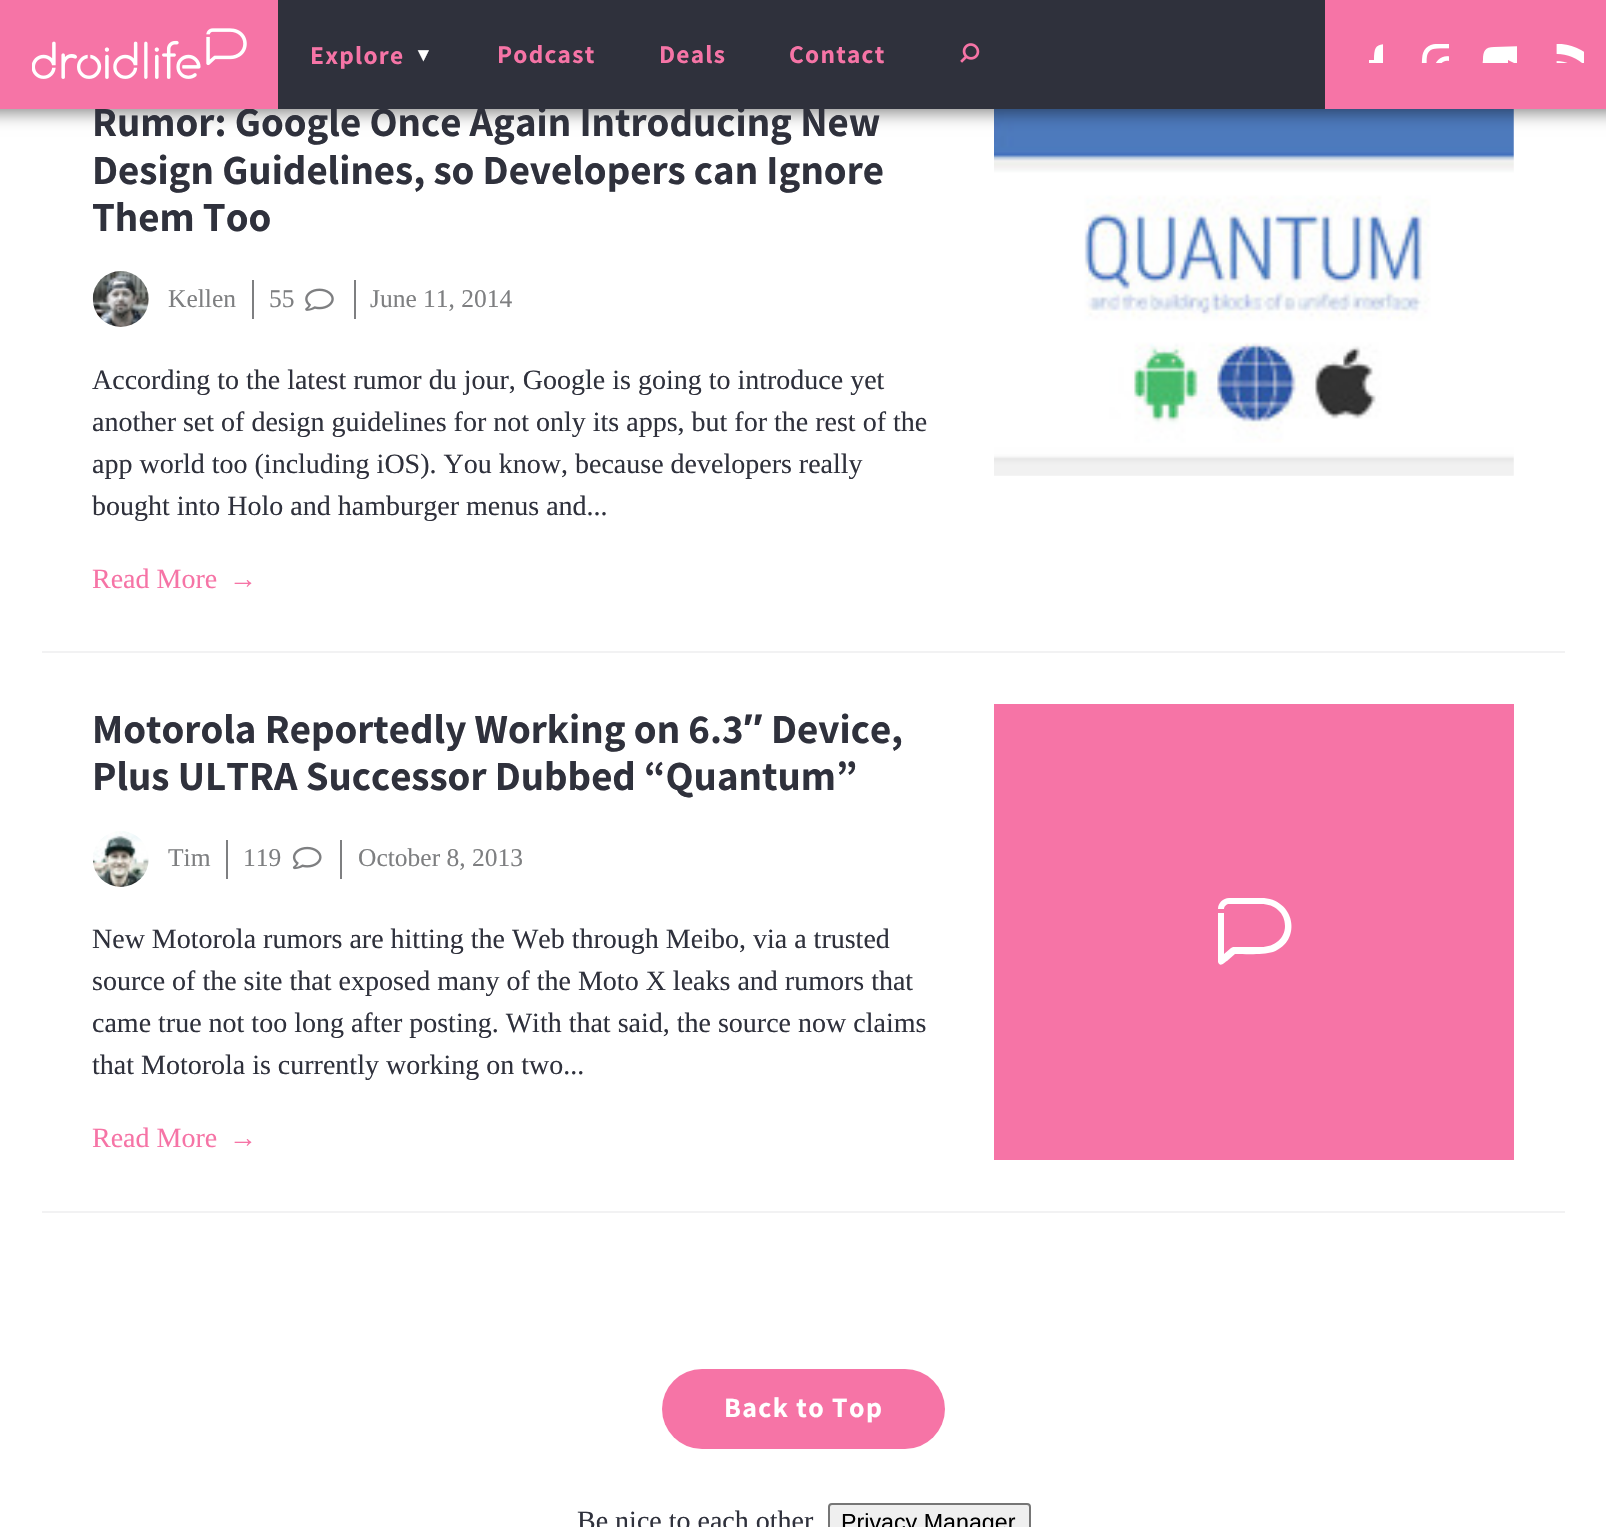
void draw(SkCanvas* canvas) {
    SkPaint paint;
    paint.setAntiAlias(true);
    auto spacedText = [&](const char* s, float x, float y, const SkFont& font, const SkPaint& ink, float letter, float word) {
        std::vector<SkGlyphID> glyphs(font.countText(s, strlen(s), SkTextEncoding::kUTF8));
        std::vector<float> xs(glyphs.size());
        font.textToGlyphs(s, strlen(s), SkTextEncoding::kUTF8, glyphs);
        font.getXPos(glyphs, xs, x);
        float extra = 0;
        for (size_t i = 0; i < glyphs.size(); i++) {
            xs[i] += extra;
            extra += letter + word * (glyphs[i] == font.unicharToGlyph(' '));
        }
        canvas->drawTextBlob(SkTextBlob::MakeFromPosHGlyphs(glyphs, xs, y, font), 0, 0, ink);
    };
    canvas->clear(0xFFFFFFFF);
    canvas->drawImageRect(SkImages::DeferredFromEncodedData(SkData::MakeFromFileName("img7.png")), SkRect::MakeXYWH(994, 109, 520, 367), SkSamplingOptions());
    paint.setColor(0x80000000);
    paint.setMaskFilter(SkMaskFilter::MakeBlur(kNormal_SkBlurStyle, 8.5f));
    canvas->drawRect(SkRect::MakeXYWH(-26, -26, 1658, 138), paint);
    paint.setMaskFilter(nullptr);
    SkFont font1(fontMgr->matchFamilyStyle("Assistant", SkFontStyle(200, SkFontStyle::kNormal_Width, SkFontStyle::kUpright_Slant)), 41.25f);
    font1.setSubpixel(true);
    paint.setColor(0xFF2F313C);
    canvas->drawString("Rumor: Google Once Again Introducing New", 92, 136, font1, paint);
    paint.setColor(0xFFF674A6);
    canvas->drawRect(SkRect::MakeXYWH(0, 0, 278, 109), paint);
    canvas->drawImageRect(SkImages::DeferredFromEncodedData(SkData::MakeFromFileName("img1.png")), SkRect::MakeXYWH(32, 28, 215, 51), SkSamplingOptions());
    paint.setColor(0xFF2F313C);
    canvas->drawRect(SkRect::MakeXYWH(278, 0, 1047, 109), paint);
    SkFont font2(fontMgr->matchFamilyStyle("Assistant", SkFontStyle(200, SkFontStyle::kNormal_Width, SkFontStyle::kUpright_Slant)), 25.5f);
    font2.setSubpixel(true);
    paint.setColor(0xFFF674A6);
    spacedText("Explore", 310, 64, font2, paint, 1.25f, 0);
    SkFont font3(fontMgr->matchFamilyStyle("Liberation Sans", SkFontStyle::Normal()), 19);
    font3.setSubpixel(true);
    paint.setColor(0xFFFFFFFF);
    spacedText("▼", 414, 61, font3, paint, 1.25f, 0);
    paint.setColor(0xFFF674A6);
    spacedText("Podcast", 497, 63, font2, paint, 1.25f, 0);
    spacedText("Deals", 659, 63, font2, paint, 1.25f, 0);
    spacedText("Contact", 789, 63, font2, paint, 1.25f, 0);
    canvas->drawImageRect(SkImages::DeferredFromEncodedData(SkData::MakeFromFileName("img2.png")), SkRect::MakeXYWH(960, 43, 20, 20), SkSamplingOptions());
    canvas->drawRect(SkRect::MakeXYWH(1325, 0, 281, 109), paint);
    canvas->save();
    canvas->clipRect(SkRect::MakeXYWH(1348, 44, 35, 19));
    paint.setColor(0xFFFFFFFF);
    canvas->drawPath(SkPathBuilder().moveTo(1374, 60).lineTo(1369, 60).lineTo(1369, 69).lineTo(1374, 69).lineTo(1374, 95).lineTo(1385, 95).lineTo(1385, 69).lineTo(1392, 69).lineTo(1393, 60).lineTo(1385, 60).cubicTo(1385, 52, 1384, 53, 1393, 53).lineTo(1393, 44).cubicTo(1377, 44, 1374, 44, 1374, 60).close().detach(), paint);
    canvas->restore();
    canvas->drawImageRect(SkImages::DeferredFromEncodedData(SkData::MakeFromFileName("img3.png")), SkRect::MakeXYWH(1421, 44, 28, 19), SkSamplingOptions());
    canvas->save();
    canvas->clipRect(SkRect::MakeXYWH(1482, 44, 35, 19));
    canvas->drawPath(SkPathBuilder().moveTo(1547, 57).cubicTo(1545, 45, 1536, 47, 1526, 46).lineTo(1494, 47).cubicTo(1485, 47, 1483, 51, 1483, 60).cubicTo(1482, 67, 1482, 74, 1483, 81).cubicTo(1485, 94, 1493, 92, 1503, 92).lineTo(1536, 92).cubicTo(1545, 91, 1546, 87, 1547, 79).cubicTo(1548, 72, 1548, 64, 1547, 57).close().moveTo(1508, 78).lineTo(1508, 60).lineTo(1526, 69).close().detach(), paint);
    canvas->restore();
    canvas->drawImageRect(SkImages::DeferredFromEncodedData(SkData::MakeFromFileName("img4.png")), SkRect::MakeXYWH(1556, 44, 28, 19), SkSamplingOptions());
    paint.setColor(0xFF2F313C);
    canvas->drawString("Design Guidelines, so Developers can Ignore", 92, 184, font1, paint);
    canvas->drawString("Them Too", 92, 231, font1, paint);
    canvas->drawImageRect(SkImages::DeferredFromEncodedData(SkData::MakeFromFileName("img5.png")), SkRect::MakeXYWH(92, 271, 57, 56), SkSamplingOptions());
    SkFont font4(fontMgr->matchFamilyStyle("Liberation Serif", SkFontStyle::Normal()), 25.5f);
    font4.setSubpixel(true);
    paint.setColor(0xFF7E7F81);
    canvas->drawString("Kellen", 168, 307, font4, paint);
    canvas->drawRect(SkRect::MakeXYWH(252, 280, 2, 39), paint);
    canvas->drawString("55", 269, 307, font4, paint);
    canvas->drawImageRect(SkImages::DeferredFromEncodedData(SkData::MakeFromFileName("img6.png")), SkRect::MakeXYWH(305, 288, 29, 23), SkSamplingOptions());
    canvas->drawRect(SkRect::MakeXYWH(354, 280, 2, 39), paint);
    canvas->drawString("June 11, 2014", 370, 307, font4, paint);
    SkFont font5(fontMgr->matchFamilyStyle("Liberation Serif", SkFontStyle::Normal()), 28);
    font5.setSubpixel(true);
    paint.setColor(0xFF2F313C);
    canvas->drawString("According to the latest rumor du jour, Google is going to introduce yet", 92, 389, font5, paint);
    canvas->drawString("another set of design guidelines for not only its apps, but for the rest of the", 92, 431, font5, paint);
    canvas->drawString("app world too (including iOS). You know, because developers really", 92, 473, font5, paint);
    canvas->drawString("bought into Holo and hamburger menus and...", 92, 515, font5, paint);
    paint.setColor(0xFFF674A6);
    canvas->drawString("Read More", 92, 588, font5, paint);
    canvas->drawString("→", 229, 588, font5, paint);
    paint.setColor(0xFFF2F2F3);
    canvas->drawRect(SkRect::MakeXYWH(42, 651, 1523, 2), paint);
    canvas->drawRect(SkRect::MakeXYWH(42, 1211, 1523, 2), paint);
    paint.setColor(0xFF2F313C);
    canvas->drawString("Motorola Reportedly Working on 6.3", 92, 743, font1, paint);
    SkFont font6(fontMgr->matchFamilyStyle("Liberation Sans", SkFontStyle::Bold()), 41.25f);
    font6.setSubpixel(true);
    canvas->drawString("″", 743, 743, font6, paint);
    canvas->drawString("Device,", 771, 743, font1, paint);
    canvas->drawString("Plus ULTRA Successor Dubbed “Quantum”", 92, 790, font1, paint);
    canvas->drawImageRect(SkImages::DeferredFromEncodedData(SkData::MakeFromFileName("img8.png")), SkRect::MakeXYWH(93, 831, 56, 56), SkSamplingOptions());
    paint.setColor(0xFF7E7F81);
    canvas->drawString("Tim", 168, 866, font4, paint);
    canvas->drawRect(SkRect::MakeXYWH(226, 840, 2, 39), paint);
    canvas->drawString("119", 243, 866, font4, paint);
    canvas->drawImageRect(SkImages::DeferredFromEncodedData(SkData::MakeFromFileName("img9.png")), SkRect::MakeXYWH(292, 846, 30, 24), SkSamplingOptions());
    canvas->drawRect(SkRect::MakeXYWH(340, 840, 2, 39), paint);
    canvas->drawString("October 8, 2013", 358, 866, font4, paint);
    paint.setColor(0xFF2F313C);
    canvas->drawString("New Motorola rumors are hitting the Web through Meibo, via a trusted", 92, 948, font5, paint);
    canvas->drawString("source of the site that exposed many of the Moto X leaks and rumors that", 92, 990, font5, paint);
    canvas->drawString("came true not too long after posting. With that said, the source now claims", 92, 1032, font5, paint);
    canvas->drawString("that Motorola is currently working on two...", 92, 1074, font5, paint);
    paint.setColor(0xFFF674A6);
    canvas->drawString("Read More", 92, 1147, font5, paint);
    canvas->drawString("→", 229, 1147, font5, paint);
    canvas->drawRect(SkRect::MakeXYWH(994, 704, 520, 456), paint);
    paint.setColor(0xFFFFFFFF);
    canvas->drawPath(SkPathBuilder().moveTo(1261, 898).lineTo(1229, 898).cubicTo(1223, 898, 1218, 903, 1218, 909).lineTo(1224, 909).cubicTo(1224, 906, 1227, 904, 1229, 904).lineTo(1261, 904).cubicTo(1275, 904, 1285, 913, 1285, 926).cubicTo(1285, 938, 1275, 947, 1261, 947).lineTo(1233, 947).lineTo(1231, 948).lineTo(1224, 954).lineTo(1224, 913).lineTo(1218, 913).lineTo(1218, 962).cubicTo(1220, 968, 1225, 962, 1227, 961).lineTo(1235, 954).cubicTo(1246, 954, 1263, 955, 1273, 952).cubicTo(1303, 941, 1295, 898, 1261, 898).detach(), paint);
    paint.setColor(0xFFF674A6);
    canvas->drawRoundRect(SkRect::MakeXYWH(662, 1369, 283, 80), 40, 40, paint);
    SkFont font7(fontMgr->matchFamilyStyle("Assistant", SkFontStyle(200, SkFontStyle::kNormal_Width, SkFontStyle::kUpright_Slant)), 28);
    font7.setSubpixel(true);
    paint.setColor(0xFFFFFFFF);
    spacedText("Back to Top", 724, 1417, font7, paint, 1.4f, 0);
    paint.setColor(0xFF2F313C);
    canvas->drawString("Be nice to each other", 577, 1530, font5, paint);
    paint.setColor(0xFFEFEFEF);
    canvas->drawRoundRect(SkRect::MakeXYWH(829, 1504, 201, 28), 3, 3, paint);
    paint.setStyle(SkPaint::kStroke_Style);
    paint.setStrokeWidth(2);
    paint.setColor(0xFF767676);
    canvas->drawRoundRect(SkRect::MakeXYWH(829, 1504, 201, 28), 3, 3, paint);
    SkFont font8(fontMgr->matchFamilyStyle("Liberation Sans", SkFontStyle::Normal()), 23.25f);
    font8.setSubpixel(true);
    paint.setStyle(SkPaint::kFill_Style);
    paint.setColor(0xFF000000);
    canvas->drawString("Privacy Manager", 841, 1530, font8, paint);
}
